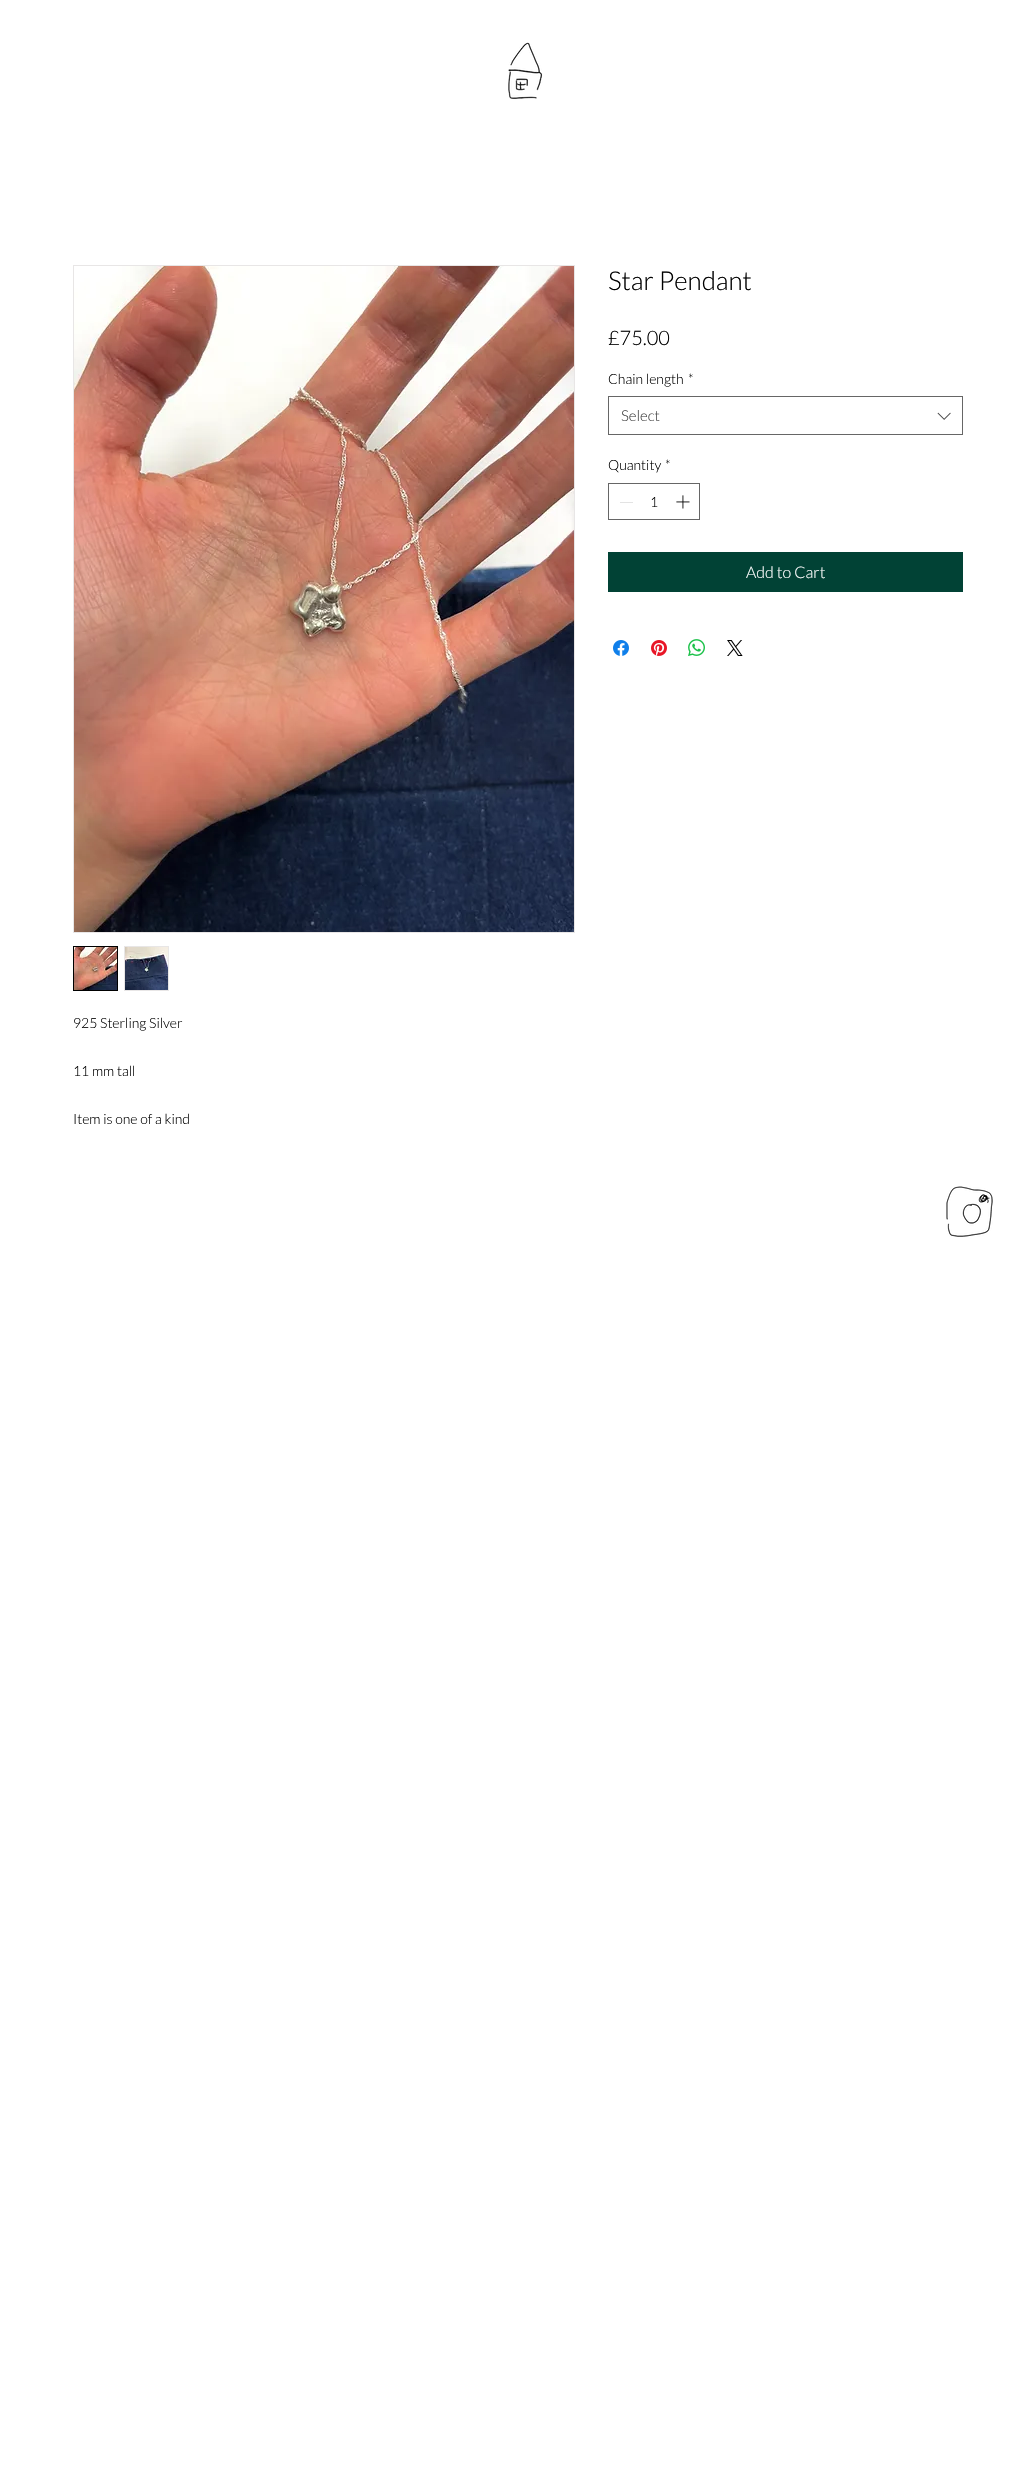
void draw(SkCanvas* canvas) {
    SkPaint paint;
    paint.setAntiAlias(true);
    canvas->clear(0xFFFFFFFF);
    canvas->drawImageRect(SkImages::DeferredFromEncodedData(SkData::MakeFromFileName("img1.png")), SkRect::MakeXYWH(508, 42, 35, 57), SkSamplingOptions());
    SkFont font1(fontMgr->matchFamilyStyle("Lato", SkFontStyle(300, SkFontStyle::kNormal_Width, SkFontStyle::kUpright_Slant)), 26);
    font1.setSubpixel(true);
    paint.setColor(0xFF000000);
    canvas->drawString("Star Pendant", 608, 290, font1, paint);
    SkFont font2(fontMgr->matchFamilyStyle("Lato", SkFontStyle(300, SkFontStyle::kNormal_Width, SkFontStyle::kUpright_Slant)), 20);
    font2.setSubpixel(true);
    canvas->drawString("£75.00", 608, 345, font2, paint);
    SkFont font3(fontMgr->matchFamilyStyle("Lato", SkFontStyle(300, SkFontStyle::kNormal_Width, SkFontStyle::kUpright_Slant)), 14);
    font3.setSubpixel(true);
    canvas->drawString("Chain length", 608, 384, font3, paint);
    canvas->drawString("*", 688, 384, font3, paint);
    paint.setStyle(SkPaint::kStroke_Style);
    paint.setStrokeWidth(1);
    paint.setColor(0xFF666666);
    canvas->drawRect(SkRect::MakeXYWH(608.5f, 396.5f, 354, 38), paint);
    SkFont font4(fontMgr->matchFamilyStyle("Lato", SkFontStyle(300, SkFontStyle::kNormal_Width, SkFontStyle::kUpright_Slant)), 15);
    font4.setSubpixel(true);
    paint.setStyle(SkPaint::kFill_Style);
    paint.setColor(0xFF444444);
    canvas->drawString("Select", 621, 421, font4, paint);
    canvas->drawImageRect(SkImages::DeferredFromEncodedData(SkData::MakeFromFileName("img2.png")), SkRect::MakeXYWH(937, 412, 14, 8), SkSamplingOptions());
    paint.setColor(0xFF000000);
    canvas->drawString("Quantity", 608, 470, font3, paint);
    canvas->drawString("*", 665, 470, font3, paint);
    paint.setStyle(SkPaint::kStroke_Style);
    paint.setColor(0xFF666666);
    canvas->drawRect(SkRect::MakeXYWH(608.5f, 483.5f, 91, 36), paint);
    paint.setStyle(SkPaint::kFill_Style);
    paint.setColor(0xFFE3E3E3);
    canvas->drawRect(SkRect::MakeXYWH(620, 502, 13, 1), paint);
    paint.setColor(0xFF000000);
    canvas->drawString("1", 650, 507, font3, paint);
    canvas->drawImageRect(SkImages::DeferredFromEncodedData(SkData::MakeFromFileName("img3.png")), SkRect::MakeXYWH(676, 495, 14, 14), SkSamplingOptions());
    paint.setColor(0xFF014235);
    canvas->drawRect(SkRect::MakeXYWH(608, 552, 355, 40), paint);
    SkFont font5(fontMgr->matchFamilyStyle("Lato", SkFontStyle(300, SkFontStyle::kNormal_Width, SkFontStyle::kUpright_Slant)), 16);
    font5.setSubpixel(true);
    paint.setColor(0xFFFFFFFF);
    canvas->drawString("Add to Cart", 746, 578, font5, paint);
    canvas->drawImageRect(SkImages::DeferredFromEncodedData(SkData::MakeFromFileName("img4.png")), SkRect::MakeXYWH(613, 640, 16, 16), SkSamplingOptions());
    canvas->drawImageRect(SkImages::DeferredFromEncodedData(SkData::MakeFromFileName("img5.png")), SkRect::MakeXYWH(651, 640, 16, 16), SkSamplingOptions());
    canvas->drawImageRect(SkImages::DeferredFromEncodedData(SkData::MakeFromFileName("img6.png")), SkRect::MakeXYWH(688, 639, 17, 17), SkSamplingOptions());
    canvas->drawImageRect(SkImages::DeferredFromEncodedData(SkData::MakeFromFileName("img7.png")), SkRect::MakeXYWH(727, 640, 16, 16), SkSamplingOptions());
    paint.setStyle(SkPaint::kStroke_Style);
    paint.setColor(0xFFE8E6E6);
    canvas->drawRect(SkRect::MakeXYWH(73.5f, 265.5f, 501, 667), paint);
    canvas->drawImageRect(SkImages::DeferredFromEncodedData(SkData::MakeFromFileName("img8.png")), SkRect::MakeXYWH(74, 266, 500, 666), SkSamplingOptions());
    paint.setColor(0xFF000000);
    canvas->drawRect(SkRect::MakeXYWH(73.5f, 946.5f, 44, 44), paint);
    canvas->drawImageRect(SkImages::DeferredFromEncodedData(SkData::MakeFromFileName("img9.png")), SkRect::MakeXYWH(74, 947, 43, 43), SkSamplingOptions());
    paint.setStyle(SkPaint::kFill_Style);
    paint.setColor(0xFFE8E6E6);
    canvas->drawRect(SkRect::MakeXYWH(124, 946, 45, 45), paint);
    canvas->drawImageRect(SkImages::DeferredFromEncodedData(SkData::MakeFromFileName("img10.png")), SkRect::MakeXYWH(125, 947, 43, 43), SkSamplingOptions());
    paint.setColor(0xFF000000);
    canvas->drawString("925 Sterling Silver", 73, 1028, font3, paint);
    canvas->drawString("11 mm tall", 73, 1076, font3, paint);
    canvas->drawString("Item is one of a kind", 73, 1124, font3, paint);
    canvas->drawImageRect(SkImages::DeferredFromEncodedData(SkData::MakeFromFileName("img11.png")), SkRect::MakeXYWH(946, 1186, 47, 51), SkSamplingOptions());
}
